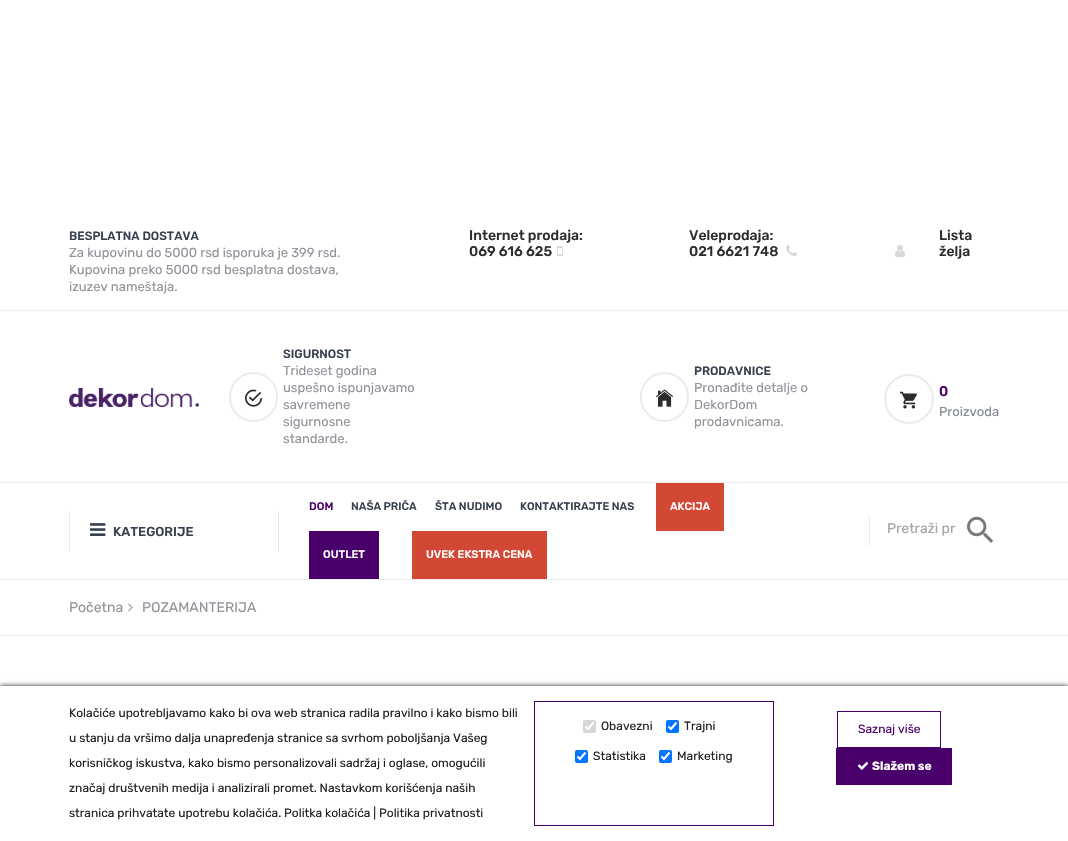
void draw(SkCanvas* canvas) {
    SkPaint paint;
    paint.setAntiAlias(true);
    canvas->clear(0xFFFFFFFF);
    paint.setColor(0xFFEDEDED);
    canvas->drawRect(SkRect::MakeXYWH(0, 310, 1068, 1), paint);
    SkFont font1(fontMgr->matchFamilyStyle("Rubik", SkFontStyle(500, SkFontStyle::kNormal_Width, SkFontStyle::kUpright_Slant)), 12);
    font1.setSubpixel(true);
    paint.setColor(0xFF363F4D);
    canvas->drawString("BESPLATNA DOSTAVA", 69, 240, font1, paint);
    SkFont font2(fontMgr->matchFamilyStyle("Rubik", SkFontStyle::Normal()), 13);
    font2.setSubpixel(true);
    paint.setColor(0xFF91959B);
    canvas->drawString("Za kupovinu do 5000 rsd isporuka je 399 rsd.", 69, 257, font2, paint);
    canvas->drawString("Kupovina preko 5000 rsd besplatna dostava,", 69, 274, font2, paint);
    canvas->drawString("izuzev nameštaja.", 69, 291, font2, paint);
    SkFont font3(fontMgr->matchFamilyStyle("Rubik", SkFontStyle(500, SkFontStyle::kNormal_Width, SkFontStyle::kUpright_Slant)), 14);
    font3.setSubpixel(true);
    paint.setColor(0xFF2C2C2C);
    canvas->drawString("Internet prodaja:", 469, 240, font3, paint);
    canvas->drawString("069 616 625", 469, 256, font3, paint);
    canvas->drawImageRect(SkImages::DeferredFromEncodedData(SkData::MakeFromFileName("img1.png")), SkRect::MakeXYWH(557, 246, 6, 10), SkSamplingOptions());
    canvas->drawString("Veleprodaja:", 689, 240, font3, paint);
    canvas->drawString("021 6621 748", 689, 256, font3, paint);
    canvas->drawImageRect(SkImages::DeferredFromEncodedData(SkData::MakeFromFileName("img2.png")), SkRect::MakeXYWH(786, 245, 11, 11), SkSamplingOptions());
    canvas->drawImageRect(SkImages::DeferredFromEncodedData(SkData::MakeFromFileName("img3.png")), SkRect::MakeXYWH(895, 245, 10, 12), SkSamplingOptions());
    canvas->drawString("Lista", 939, 240, font3, paint);
    canvas->drawString("želja", 939, 256, font3, paint);
    paint.setColor(0xFFEDEDED);
    canvas->drawRect(SkRect::MakeXYWH(0, 482, 1068, 1), paint);
    canvas->drawImageRect(SkImages::DeferredFromEncodedData(SkData::MakeFromFileName("img4.png")), SkRect::MakeXYWH(69, 388, 130, 19), SkSamplingOptions());
    paint.setStyle(SkPaint::kStroke_Style);
    paint.setStrokeWidth(2);
    paint.setColor(0xFFEBEBEB);
    canvas->drawRoundRect(SkRect::MakeXYWH(230, 373, 47, 48), 23.5f, 23.5f, paint);
    canvas->drawImageRect(SkImages::DeferredFromEncodedData(SkData::MakeFromFileName("img5.png")), SkRect::MakeXYWH(245, 389, 17, 18), SkSamplingOptions());
    paint.setStyle(SkPaint::kFill_Style);
    paint.setColor(0xFF363F4D);
    canvas->drawString("SIGURNOST", 283, 358, font1, paint);
    paint.setColor(0xFF91959B);
    canvas->drawString("Trideset godina", 283, 375, font2, paint);
    canvas->drawString("uspešno ispunjavamo", 283, 392, font2, paint);
    canvas->drawString("savremene", 283, 409, font2, paint);
    canvas->drawString("sigurnosne", 283, 426, font2, paint);
    canvas->drawString("standarde.", 283, 443, font2, paint);
    paint.setStyle(SkPaint::kStroke_Style);
    paint.setColor(0xFFEBEBEB);
    canvas->drawRoundRect(SkRect::MakeXYWH(641, 373, 47, 48), 23.5f, 23.5f, paint);
    canvas->drawImageRect(SkImages::DeferredFromEncodedData(SkData::MakeFromFileName("img6.png")), SkRect::MakeXYWH(656, 389, 17, 18), SkSamplingOptions());
    paint.setStyle(SkPaint::kFill_Style);
    paint.setColor(0xFF363F4D);
    canvas->drawString("PRODAVNICE", 694, 375, font1, paint);
    paint.setColor(0xFF91959B);
    canvas->drawString("Pronađite detalje o", 694, 392, font2, paint);
    canvas->drawString("DekorDom", 694, 409, font2, paint);
    canvas->drawString("prodavnicama.", 694, 426, font2, paint);
    paint.setStyle(SkPaint::kStroke_Style);
    paint.setColor(0xFFEBEBEB);
    canvas->drawCircle(909, 399, 24, paint);
    canvas->drawImageRect(SkImages::DeferredFromEncodedData(SkData::MakeFromFileName("img7.png")), SkRect::MakeXYWH(900, 391, 17, 18), SkSamplingOptions());
    paint.setStyle(SkPaint::kFill_Style);
    paint.setColor(0xFF4A006A);
    canvas->drawString("0", 939, 396, font3, paint);
    paint.setColor(0xFF838B98);
    canvas->drawString("Proizvoda", 939, 416, font2, paint);
    paint.setColor(0xFFEDEDED);
    canvas->drawRect(SkRect::MakeXYWH(0, 579, 1068, 1), paint);
    paint.setColor(0xFFEBEBEB);
    canvas->drawRect(SkRect::MakeXYWH(278, 511, 1, 41), paint);
    canvas->drawRect(SkRect::MakeXYWH(69, 511, 1, 41), paint);
    canvas->drawImageRect(SkImages::DeferredFromEncodedData(SkData::MakeFromFileName("img8.png")), SkRect::MakeXYWH(90, 523, 16, 13), SkSamplingOptions());
    SkFont font4(fontMgr->matchFamilyStyle("Rubik", SkFontStyle(500, SkFontStyle::kNormal_Width, SkFontStyle::kUpright_Slant)), 13);
    font4.setSubpixel(true);
    paint.setColor(0xFF363F4D);
    canvas->drawString("KATEGORIJE", 113, 536, font4, paint);
    SkFont font5(fontMgr->matchFamilyStyle("Rubik", SkFontStyle(500, SkFontStyle::kNormal_Width, SkFontStyle::kUpright_Slant)), 11);
    font5.setSubpixel(true);
    paint.setColor(0xFF4A006A);
    canvas->drawString("DOM", 309, 510, font5, paint);
    paint.setColor(0xFF363F4D);
    canvas->drawString("NAŠA PRIČA", 351, 510, font5, paint);
    canvas->drawString("ŠTA NUDIMO", 435, 510, font5, paint);
    canvas->drawString("KONTAKTIRAJTE NAS", 520, 510, font5, paint);
    paint.setColor(0xFFD34834);
    canvas->drawRect(SkRect::MakeXYWH(656, 483, 68, 48), paint);
    paint.setColor(0xFFFFFFFF);
    canvas->drawString("AKCIJA", 670, 510, font5, paint);
    paint.setColor(0xFF4A006A);
    canvas->drawRect(SkRect::MakeXYWH(309, 531, 70, 48), paint);
    paint.setColor(0xFFFFFFFF);
    canvas->drawString("OUTLET", 323, 558, font5, paint);
    paint.setColor(0xFFD34834);
    canvas->drawRect(SkRect::MakeXYWH(412, 531, 135, 48), paint);
    paint.setColor(0xFFFFFFFF);
    canvas->drawString("UVEK EKSTRA CENA", 426, 558, font5, paint);
    paint.setColor(0xFFEBEBEB);
    canvas->drawRect(SkRect::MakeXYWH(869, 516, 1, 30), paint);
    SkFont font6(fontMgr->matchFamilyStyle("Rubik", SkFontStyle::Normal()), 14);
    font6.setSubpixel(true);
    paint.setColor(0xFFA4A4A4);
    canvas->drawString("Pretraži pr", 887, 533, font6, paint);
    canvas->drawImageRect(SkImages::DeferredFromEncodedData(SkData::MakeFromFileName("img9.png")), SkRect::MakeXYWH(967, 516, 27, 27), SkSamplingOptions());
    paint.setColor(0xFFEBEBEB);
    canvas->drawRect(SkRect::MakeXYWH(0, 635, 1068, 1), paint);
    paint.setColor(0xFF91959B);
    canvas->drawString("Početna", 69, 612, font6, paint);
    canvas->drawImageRect(SkImages::DeferredFromEncodedData(SkData::MakeFromFileName("img10.png")), SkRect::MakeXYWH(128, 603, 5, 9), SkSamplingOptions());
    canvas->drawString("POZAMANTERIJA", 142, 612, font6, paint);
    paint.setColor(0xFF222222);
    paint.setMaskFilter(SkMaskFilter::MakeBlur(kNormal_SkBlurStyle, 2.5f));
    canvas->drawRect(SkRect::MakeXYWH(0, 686, 1068, 155), paint);
    paint.setMaskFilter(nullptr);
    paint.setColor(0xFFFFFFFF);
    canvas->drawRect(SkRect::MakeXYWH(0, 686, 1068, 155), paint);
    SkFont font7(fontMgr->matchFamilyStyle("Rubik", SkFontStyle::Normal()), 12);
    font7.setSubpixel(true);
    paint.setColor(0xFF222222);
    canvas->drawString("Kolačiće upotrebljavamo kako bi ova web stranica radila pravilno i kako bismo bili", 69, 717, font7, paint);
    canvas->drawString("u stanju da vršimo dalja unapređenja stranice sa svrhom poboljšanja Vašeg", 69, 742, font7, paint);
    canvas->drawString("korisničkog iskustva, kako bismo personalizovali sadržaj i oglase, omogućili", 69, 767, font7, paint);
    canvas->drawString("značaj društvenih medija i analizirali promet. Nastavkom korišćenja naših", 69, 792, font7, paint);
    canvas->drawString("stranica prihvatate upotrebu kolačića. Politka kolačića | Politika privatnosti", 69, 817, font7, paint);
    paint.setStyle(SkPaint::kStroke_Style);
    paint.setStrokeWidth(1);
    paint.setColor(0xFF4A006A);
    canvas->drawRect(SkRect::MakeXYWH(534.5f, 701.5f, 239, 124), paint);
    paint.setStyle(SkPaint::kFill_Style);
    paint.setColor(0xFFD6D6D6);
    canvas->drawRoundRect(SkRect::MakeXYWH(583, 720, 13, 13), 2, 2, paint);
    paint.setStyle(SkPaint::kStroke_Style);
    paint.setStrokeWidth(2.1f);
    paint.setColor(0xFFFFFFFF);
    canvas->drawPath(SkPathBuilder().moveTo(585.5f, 726.5f).lineTo(588, 729).lineTo(593.5f, 722.5f).detach(), paint);
    paint.setStyle(SkPaint::kFill_Style);
    paint.setColor(0xFF222222);
    canvas->drawString("Obavezni", 601, 730, font7, paint);
    paint.setColor(0xFF0075FF);
    canvas->drawRoundRect(SkRect::MakeXYWH(666, 720, 13, 13), 2, 2, paint);
    paint.setStyle(SkPaint::kStroke_Style);
    paint.setColor(0xFFFFFFFF);
    canvas->drawPath(SkPathBuilder().moveTo(668.5f, 726.5f).lineTo(671, 729).lineTo(676.5f, 722.5f).detach(), paint);
    paint.setStyle(SkPaint::kFill_Style);
    paint.setColor(0xFF222222);
    canvas->drawString("Trajni", 684, 730, font7, paint);
    paint.setColor(0xFF0075FF);
    canvas->drawRoundRect(SkRect::MakeXYWH(575, 750, 13, 13), 2, 2, paint);
    paint.setStyle(SkPaint::kStroke_Style);
    paint.setColor(0xFFFFFFFF);
    canvas->drawPath(SkPathBuilder().moveTo(577.5f, 756.5f).lineTo(580, 759).lineTo(585.5f, 752.5f).detach(), paint);
    paint.setStyle(SkPaint::kFill_Style);
    paint.setColor(0xFF222222);
    canvas->drawString("Statistika", 593, 760, font7, paint);
    paint.setColor(0xFF0075FF);
    canvas->drawRoundRect(SkRect::MakeXYWH(659, 750, 13, 13), 2, 2, paint);
    paint.setStyle(SkPaint::kStroke_Style);
    paint.setColor(0xFFFFFFFF);
    canvas->drawPath(SkPathBuilder().moveTo(661.5f, 756.5f).lineTo(664, 759).lineTo(669.5f, 752.5f).detach(), paint);
    paint.setStyle(SkPaint::kFill_Style);
    paint.setColor(0xFF222222);
    canvas->drawString("Marketing", 677, 760, font7, paint);
    paint.setStyle(SkPaint::kStroke_Style);
    paint.setStrokeWidth(1);
    paint.setColor(0xFF4A006A);
    canvas->drawRect(SkRect::MakeXYWH(837.5f, 711.5f, 103, 36), paint);
    paint.setStyle(SkPaint::kFill_Style);
    canvas->drawString("Saznaj više", 858, 733, font7, paint);
    canvas->drawRect(SkRect::MakeXYWH(836, 748, 116, 37), paint);
    canvas->drawImageRect(SkImages::DeferredFromEncodedData(SkData::MakeFromFileName("img11.png")), SkRect::MakeXYWH(857, 762, 12, 8), SkSamplingOptions());
    SkFont font8(fontMgr->matchFamilyStyle("Rubik", SkFontStyle::Bold()), 12);
    font8.setSubpixel(true);
    paint.setColor(0xFFFFFFFF);
    canvas->drawString("Slažem se", 872, 770, font8, paint);
}
